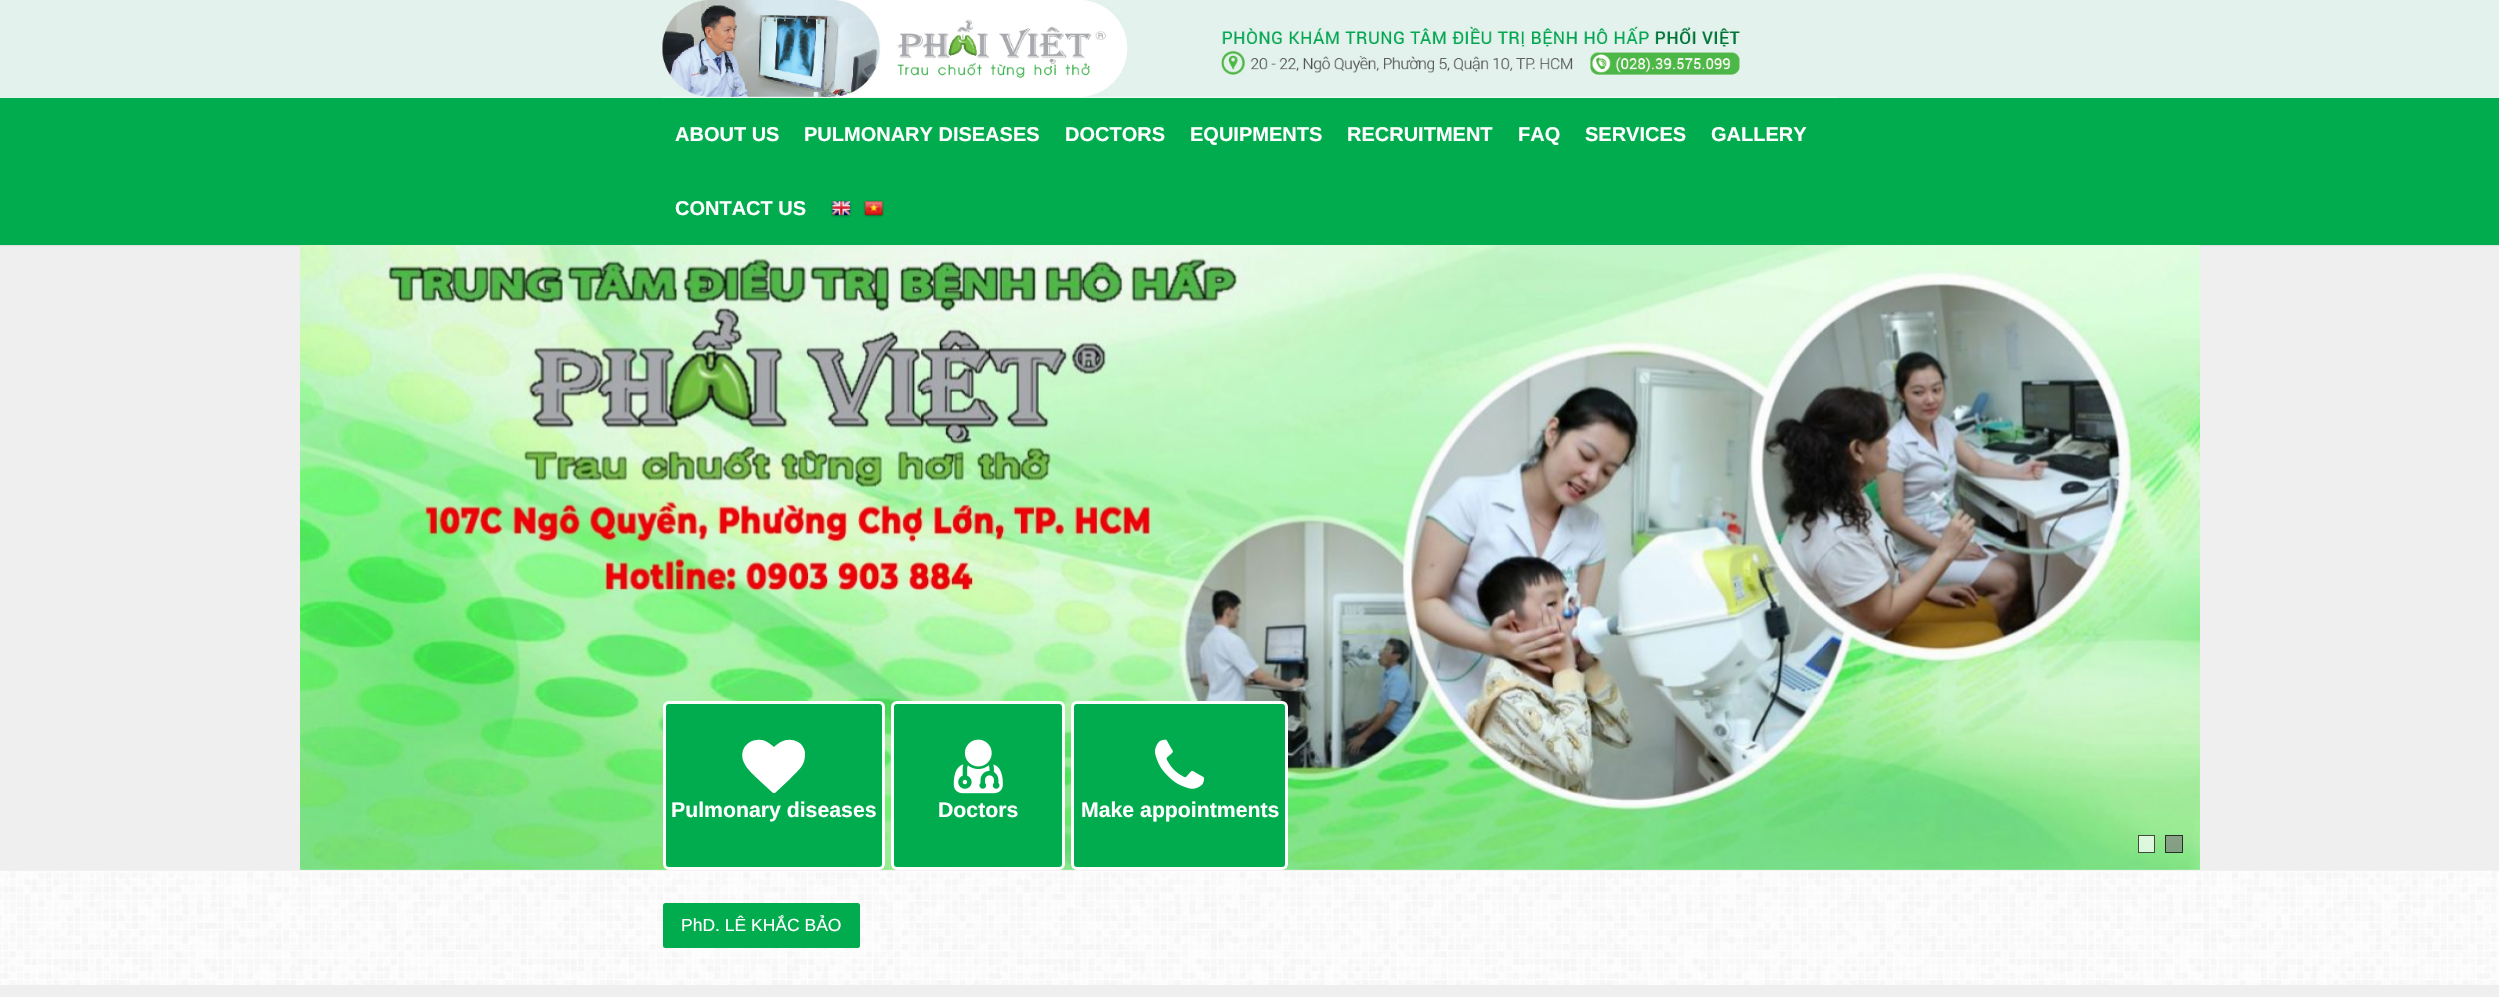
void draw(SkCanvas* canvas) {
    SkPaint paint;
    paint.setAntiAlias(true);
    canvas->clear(0xFFEFEFEF);
    paint.setColor(0x33000000);
    paint.setMaskFilter(SkMaskFilter::MakeBlur(kNormal_SkBlurStyle, 1));
    canvas->drawRect(SkRect::MakeXYWH(0, 0, 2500, 245), paint);
    paint.setMaskFilter(nullptr);
    paint.setColor(0xFF00AC4E);
    canvas->drawRect(SkRect::MakeXYWH(0, 98, 2499, 147), paint);
    paint.setColor(0xFFE3F2ED);
    canvas->drawRect(SkRect::MakeXYWH(0, 0, 2499, 98), paint);
    canvas->drawImageRect(SkImages::DeferredFromEncodedData(SkData::MakeFromFileName("img1.png")), SkRect::MakeXYWH(662, 0, 1176, 98), SkSamplingOptions());
    SkFont font1(fontMgr->matchFamilyStyle("Liberation Sans", SkFontStyle::Bold()), 20);
    font1.setSubpixel(true);
    paint.setColor(0xFFFFFFFF);
    canvas->drawString("ABOUT US", 675, 141, font1, paint);
    canvas->drawString("PULMONARY DISEASES", 804, 141, font1, paint);
    canvas->drawString("DOCTORS", 1065, 141, font1, paint);
    canvas->drawString("EQUIPMENTS", 1190, 141, font1, paint);
    canvas->drawString("RECRUITMENT", 1347, 141, font1, paint);
    canvas->drawString("FAQ", 1518, 141, font1, paint);
    canvas->drawString("SERVICES", 1585, 141, font1, paint);
    canvas->drawString("GALLERY", 1711, 141, font1, paint);
    canvas->drawString("CONTACT US", 675, 215, font1, paint);
    canvas->drawImageRect(SkImages::DeferredFromEncodedData(SkData::MakeFromFileName("img2.png")), SkRect::MakeXYWH(831, 200, 21, 18), SkSamplingOptions());
    canvas->drawImageRect(SkImages::DeferredFromEncodedData(SkData::MakeFromFileName("img3.png")), SkRect::MakeXYWH(863, 200, 21, 18), SkSamplingOptions());
    canvas->drawImageRect(SkImages::DeferredFromEncodedData(SkData::MakeFromFileName("img4.png")), SkRect::MakeXYWH(300, 245, 1900, 625), SkSamplingOptions());
    paint.setColor(0xB3FFFFFF);
    canvas->drawRect(SkRect::MakeXYWH(2138, 835, 17, 18), paint);
    paint.setStyle(SkPaint::kStroke_Style);
    paint.setStrokeWidth(1);
    paint.setColor(0xB3000000);
    canvas->drawRect(SkRect::MakeXYWH(2138.5f, 835.5f, 16, 17), paint);
    paint.setStyle(SkPaint::kFill_Style);
    paint.setColor(0xB3808080);
    canvas->drawRect(SkRect::MakeXYWH(2165, 835, 18, 18), paint);
    paint.setStyle(SkPaint::kStroke_Style);
    paint.setColor(0xB3000000);
    canvas->drawRect(SkRect::MakeXYWH(2165.5f, 835.5f, 17, 17), paint);
    paint.setStyle(SkPaint::kFill_Style);
    paint.setColor(0xFF00AC4E);
    canvas->drawRoundRect(SkRect::MakeXYWH(664.5f, 702.5f, 219, 166), 4.5f, 4.5f, paint);
    paint.setStyle(SkPaint::kStroke_Style);
    paint.setStrokeWidth(3);
    paint.setColor(0xFFFFFFFF);
    canvas->drawRoundRect(SkRect::MakeXYWH(664.5f, 702.5f, 219, 166), 4.5f, 4.5f, paint);
    paint.setStyle(SkPaint::kFill_Style);
    canvas->drawPath(SkPathBuilder().moveTo(775, 793).cubicTo(775, 793, 773, 793, 773, 793).lineTo(761, 782).cubicTo(752, 773, 737, 762, 744, 748).cubicTo(747, 743, 752, 740, 757, 740).cubicTo(764, 739, 769, 743, 774, 747).cubicTo(780, 741, 789, 737, 798, 742).cubicTo(802, 744, 804, 748, 805, 752).cubicTo(805, 756, 805, 760, 803, 764).cubicTo(800, 770, 794, 774, 790, 779).close().detach(), paint);
    SkFont font2(fontMgr->matchFamilyStyle("Liberation Sans", SkFontStyle::Bold()), 21.25f);
    font2.setSubpixel(true);
    canvas->drawString("Pulmonary diseases", 671, 817, font2, paint);
    paint.setColor(0xFF00AC4E);
    canvas->drawRoundRect(SkRect::MakeXYWH(892.5f, 702.5f, 171, 166), 4.5f, 4.5f, paint);
    paint.setStyle(SkPaint::kStroke_Style);
    paint.setColor(0xFFFFFFFF);
    canvas->drawRoundRect(SkRect::MakeXYWH(892.5f, 702.5f, 171, 166), 4.5f, 4.5f, paint);
    canvas->drawImageRect(SkImages::DeferredFromEncodedData(SkData::MakeFromFileName("img5.png")), SkRect::MakeXYWH(953, 739, 50, 55), SkSamplingOptions());
    paint.setStyle(SkPaint::kFill_Style);
    canvas->drawString("Doctors", 938, 817, font2, paint);
    paint.setColor(0xFF00AC4E);
    canvas->drawRoundRect(SkRect::MakeXYWH(1072.5f, 702.5f, 214, 166), 4.5f, 4.5f, paint);
    paint.setStyle(SkPaint::kStroke_Style);
    paint.setColor(0xFFFFFFFF);
    canvas->drawRoundRect(SkRect::MakeXYWH(1072.5f, 702.5f, 214, 166), 4.5f, 4.5f, paint);
    canvas->drawImageRect(SkImages::DeferredFromEncodedData(SkData::MakeFromFileName("img6.png")), SkRect::MakeXYWH(1155, 739, 50, 50), SkSamplingOptions());
    paint.setStyle(SkPaint::kFill_Style);
    canvas->drawString("Make appointments", 1081, 817, font2, paint);
    canvas->drawImageRect(SkImages::DeferredFromEncodedData(SkData::MakeFromFileName("img7.png")), SkRect::MakeXYWH(0, 871, 2499, 114), SkSamplingOptions());
    paint.setColor(0xFFF3F2F2);
    canvas->drawRect(SkRect::MakeXYWH(0, 870, 2499, 1), paint);
    paint.setColor(0xFF00AC4E);
    canvas->drawRoundRect(SkRect::MakeXYWH(663, 903, 197, 45), 2.5f, 2.5f, paint);
    SkFont font3(fontMgr->matchFamilyStyle("Liberation Sans", SkFontStyle::Normal()), 17.5f);
    font3.setSubpixel(true);
    paint.setColor(0xFFFFFFFF);
    canvas->drawString("PhD. LÊ KHẮC BẢO", 681, 931, font3, paint);
}
